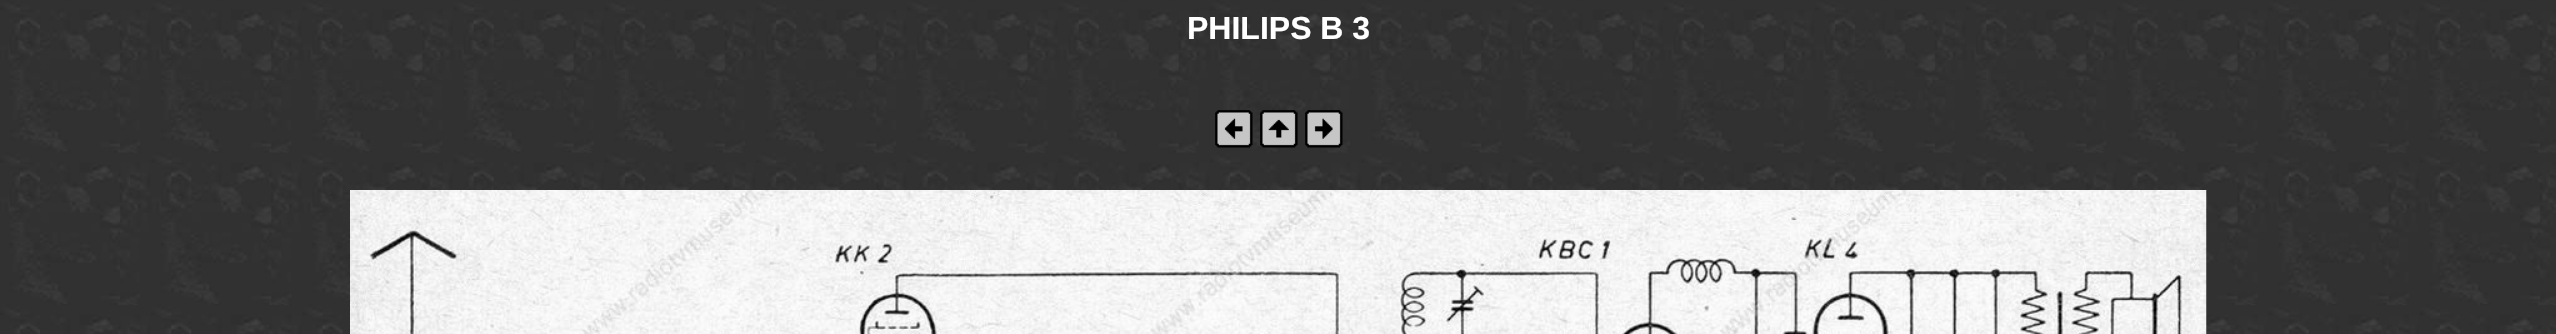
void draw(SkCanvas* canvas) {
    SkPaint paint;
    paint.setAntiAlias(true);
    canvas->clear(0xFFFFFFFF);
    canvas->drawImageRect(SkImages::DeferredFromEncodedData(SkData::MakeFromFileName("img1.png")), SkRect::MakeXYWH(0, 0, 2556, 334), SkSamplingOptions());
    SkFont font1(fontMgr->matchFamilyStyle("Liberation Sans", SkFontStyle::Bold()), 32);
    font1.setSubpixel(true);
    paint.setColor(0xFFFFFFFF);
    canvas->drawString("PHILIPS B 3", 1187, 39, font1, paint);
    canvas->drawImageRect(SkImages::DeferredFromEncodedData(SkData::MakeFromFileName("img2.png")), SkRect::MakeXYWH(1215, 110, 38, 38), SkSamplingOptions());
    canvas->drawImageRect(SkImages::DeferredFromEncodedData(SkData::MakeFromFileName("img3.png")), SkRect::MakeXYWH(1260, 110, 38, 38), SkSamplingOptions());
    canvas->drawImageRect(SkImages::DeferredFromEncodedData(SkData::MakeFromFileName("img4.png")), SkRect::MakeXYWH(1305, 110, 38, 38), SkSamplingOptions());
    canvas->drawImageRect(SkImages::DeferredFromEncodedData(SkData::MakeFromFileName("img5.png")), SkRect::MakeXYWH(350, 190, 1857, 144), SkSamplingOptions());
}
